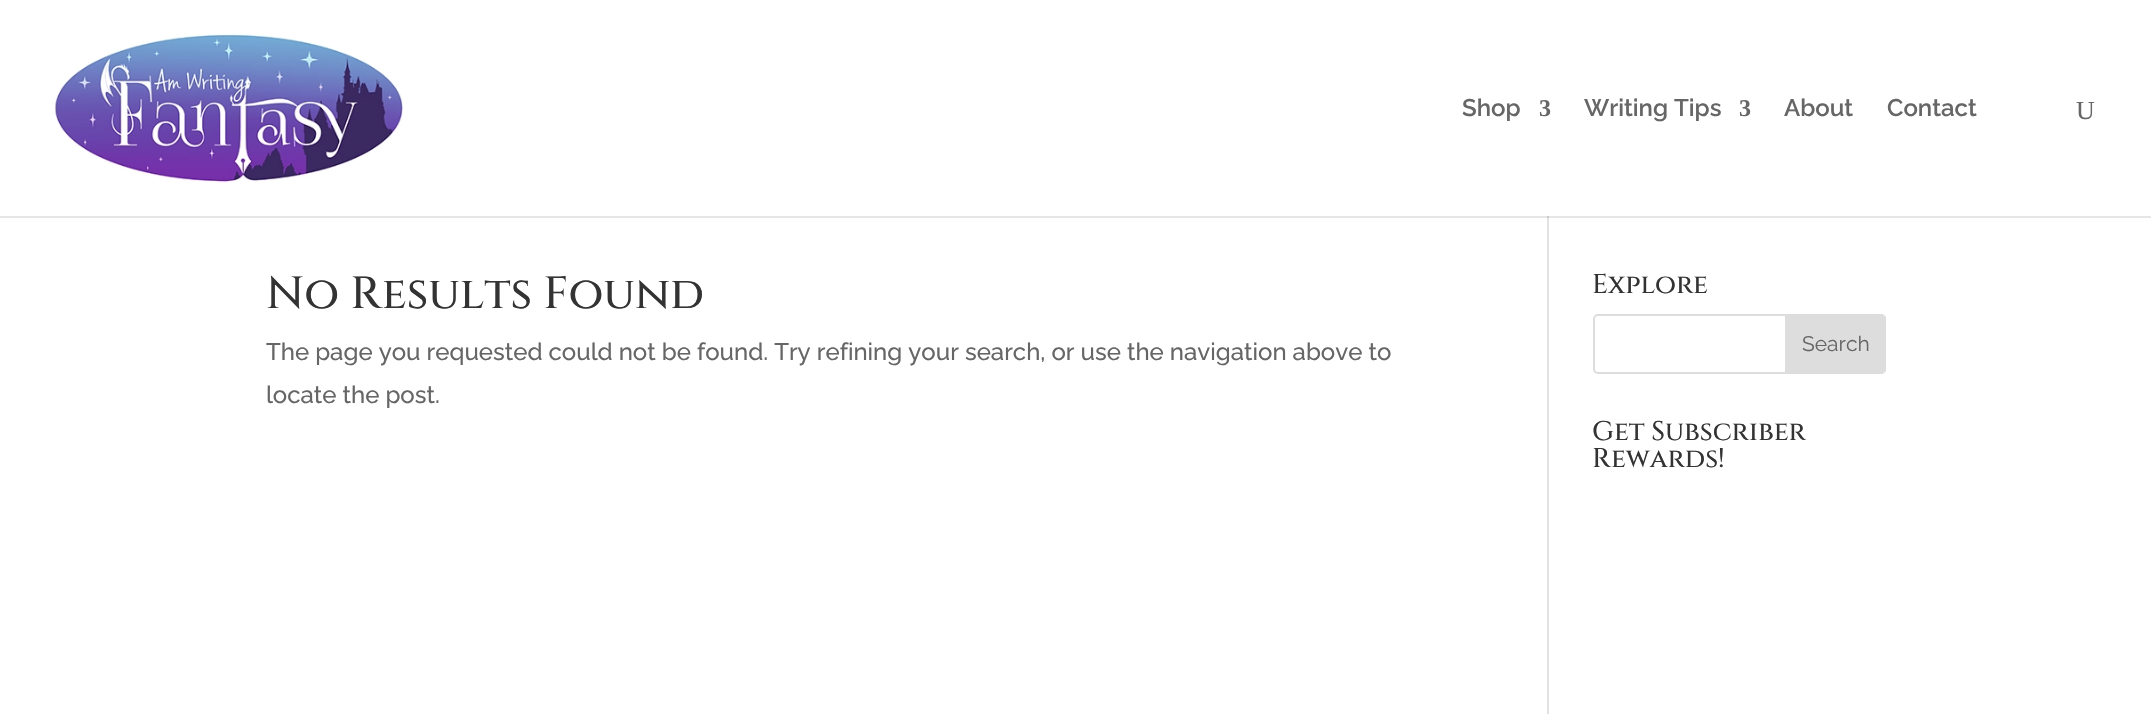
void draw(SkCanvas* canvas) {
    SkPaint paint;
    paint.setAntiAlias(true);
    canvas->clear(0xFFFFFFFF);
    canvas->drawImageRect(SkImages::DeferredFromEncodedData(SkData::MakeFromFileName("img1.png")), SkRect::MakeXYWH(54, 33, 349, 150), SkSamplingOptions());
    SkFont font1(fontMgr->matchFamilyStyle("Raleway", SkFontStyle(600, SkFontStyle::kNormal_Width, SkFontStyle::kUpright_Slant)), 24);
    font1.setSubpixel(true);
    paint.setColor(0xFF666666);
    canvas->drawString("Shop", 1462, 116, font1, paint);
    SkFont font2(fontMgr->matchFamilyStyle("Liberation Serif", SkFontStyle::Bold()), 24);
    font2.setSubpixel(true);
    canvas->drawString("3", 1539, 116, font2, paint);
    canvas->drawString("Writing Tips", 1584, 116, font1, paint);
    canvas->drawString("3", 1739, 116, font2, paint);
    canvas->drawString("About", 1784, 116, font1, paint);
    canvas->drawString("Contact", 1887, 116, font1, paint);
    SkFont font3(fontMgr->matchFamilyStyle("Liberation Serif", SkFontStyle::Normal()), 26);
    font3.setSubpixel(true);
    canvas->drawString("U", 2076, 119, font3, paint);
    paint.setColor(0xFFE6E6E6);
    canvas->drawRect(SkRect::MakeXYWH(0, 216, 2151, 2), paint);
    paint.setColor(0xFFE2E2E2);
    canvas->drawRect(SkRect::MakeXYWH(1547, 218, 2, 496), paint);
    paint.setColor(0xFFCBCBCB);
    canvas->drawRect(SkRect::MakeXYWH(1547, 216, 2, 2), paint);
    SkFont font4(fontMgr->matchFamilyStyle("Cinzel", SkFontStyle(500, SkFontStyle::kNormal_Width, SkFontStyle::kUpright_Slant)), 45);
    font4.setSubpixel(true);
    paint.setColor(0xFF333333);
    canvas->drawString("No Results Found", 266, 308, font4, paint);
    SkFont font5(fontMgr->matchFamilyStyle("Raleway", SkFontStyle(500, SkFontStyle::kNormal_Width, SkFontStyle::kUpright_Slant)), 24);
    font5.setSubpixel(true);
    paint.setColor(0xFF666666);
    canvas->drawString("The page you requested could not be found. Try refining your search, or use the navigation above to", 266, 360, font5, paint);
    canvas->drawString("locate the post.", 266, 403, font5, paint);
    SkFont font6(fontMgr->matchFamilyStyle("Cinzel", SkFontStyle(500, SkFontStyle::kNormal_Width, SkFontStyle::kUpright_Slant)), 27);
    font6.setSubpixel(true);
    paint.setColor(0xFF333333);
    canvas->drawString("Explore", 1592, 293, font6, paint);
    paint.setStyle(SkPaint::kStroke_Style);
    paint.setStrokeWidth(2);
    paint.setColor(0xFFDDDDDD);
    canvas->drawRoundRect(SkRect::MakeXYWH(1594, 315, 291, 58), 4, 4, paint);
    paint.setStyle(SkPaint::kFill_Style);
    canvas->drawPath(SkPathBuilder().moveTo(1786, 315).lineTo(1881, 315).cubicTo(1883, 315, 1885, 317, 1885, 319).lineTo(1885, 369).cubicTo(1885, 371, 1883, 373, 1881, 373).lineTo(1786, 373).close().detach(), paint);
    paint.setStyle(SkPaint::kStroke_Style);
    canvas->drawPath(SkPathBuilder().moveTo(1786, 315).lineTo(1881, 315).cubicTo(1883, 315, 1885, 317, 1885, 319).lineTo(1885, 369).cubicTo(1885, 371, 1883, 373, 1881, 373).lineTo(1786, 373).close().detach(), paint);
    SkFont font7(fontMgr->matchFamilyStyle("Raleway", SkFontStyle::Normal()), 21);
    font7.setSubpixel(true);
    paint.setStyle(SkPaint::kFill_Style);
    paint.setColor(0xFF666666);
    canvas->drawString("Search", 1802, 351, font7, paint);
    paint.setColor(0xFF333333);
    canvas->drawString("Get Subscriber", 1592, 440, font6, paint);
    canvas->drawString("Rewards!", 1592, 467, font6, paint);
}
